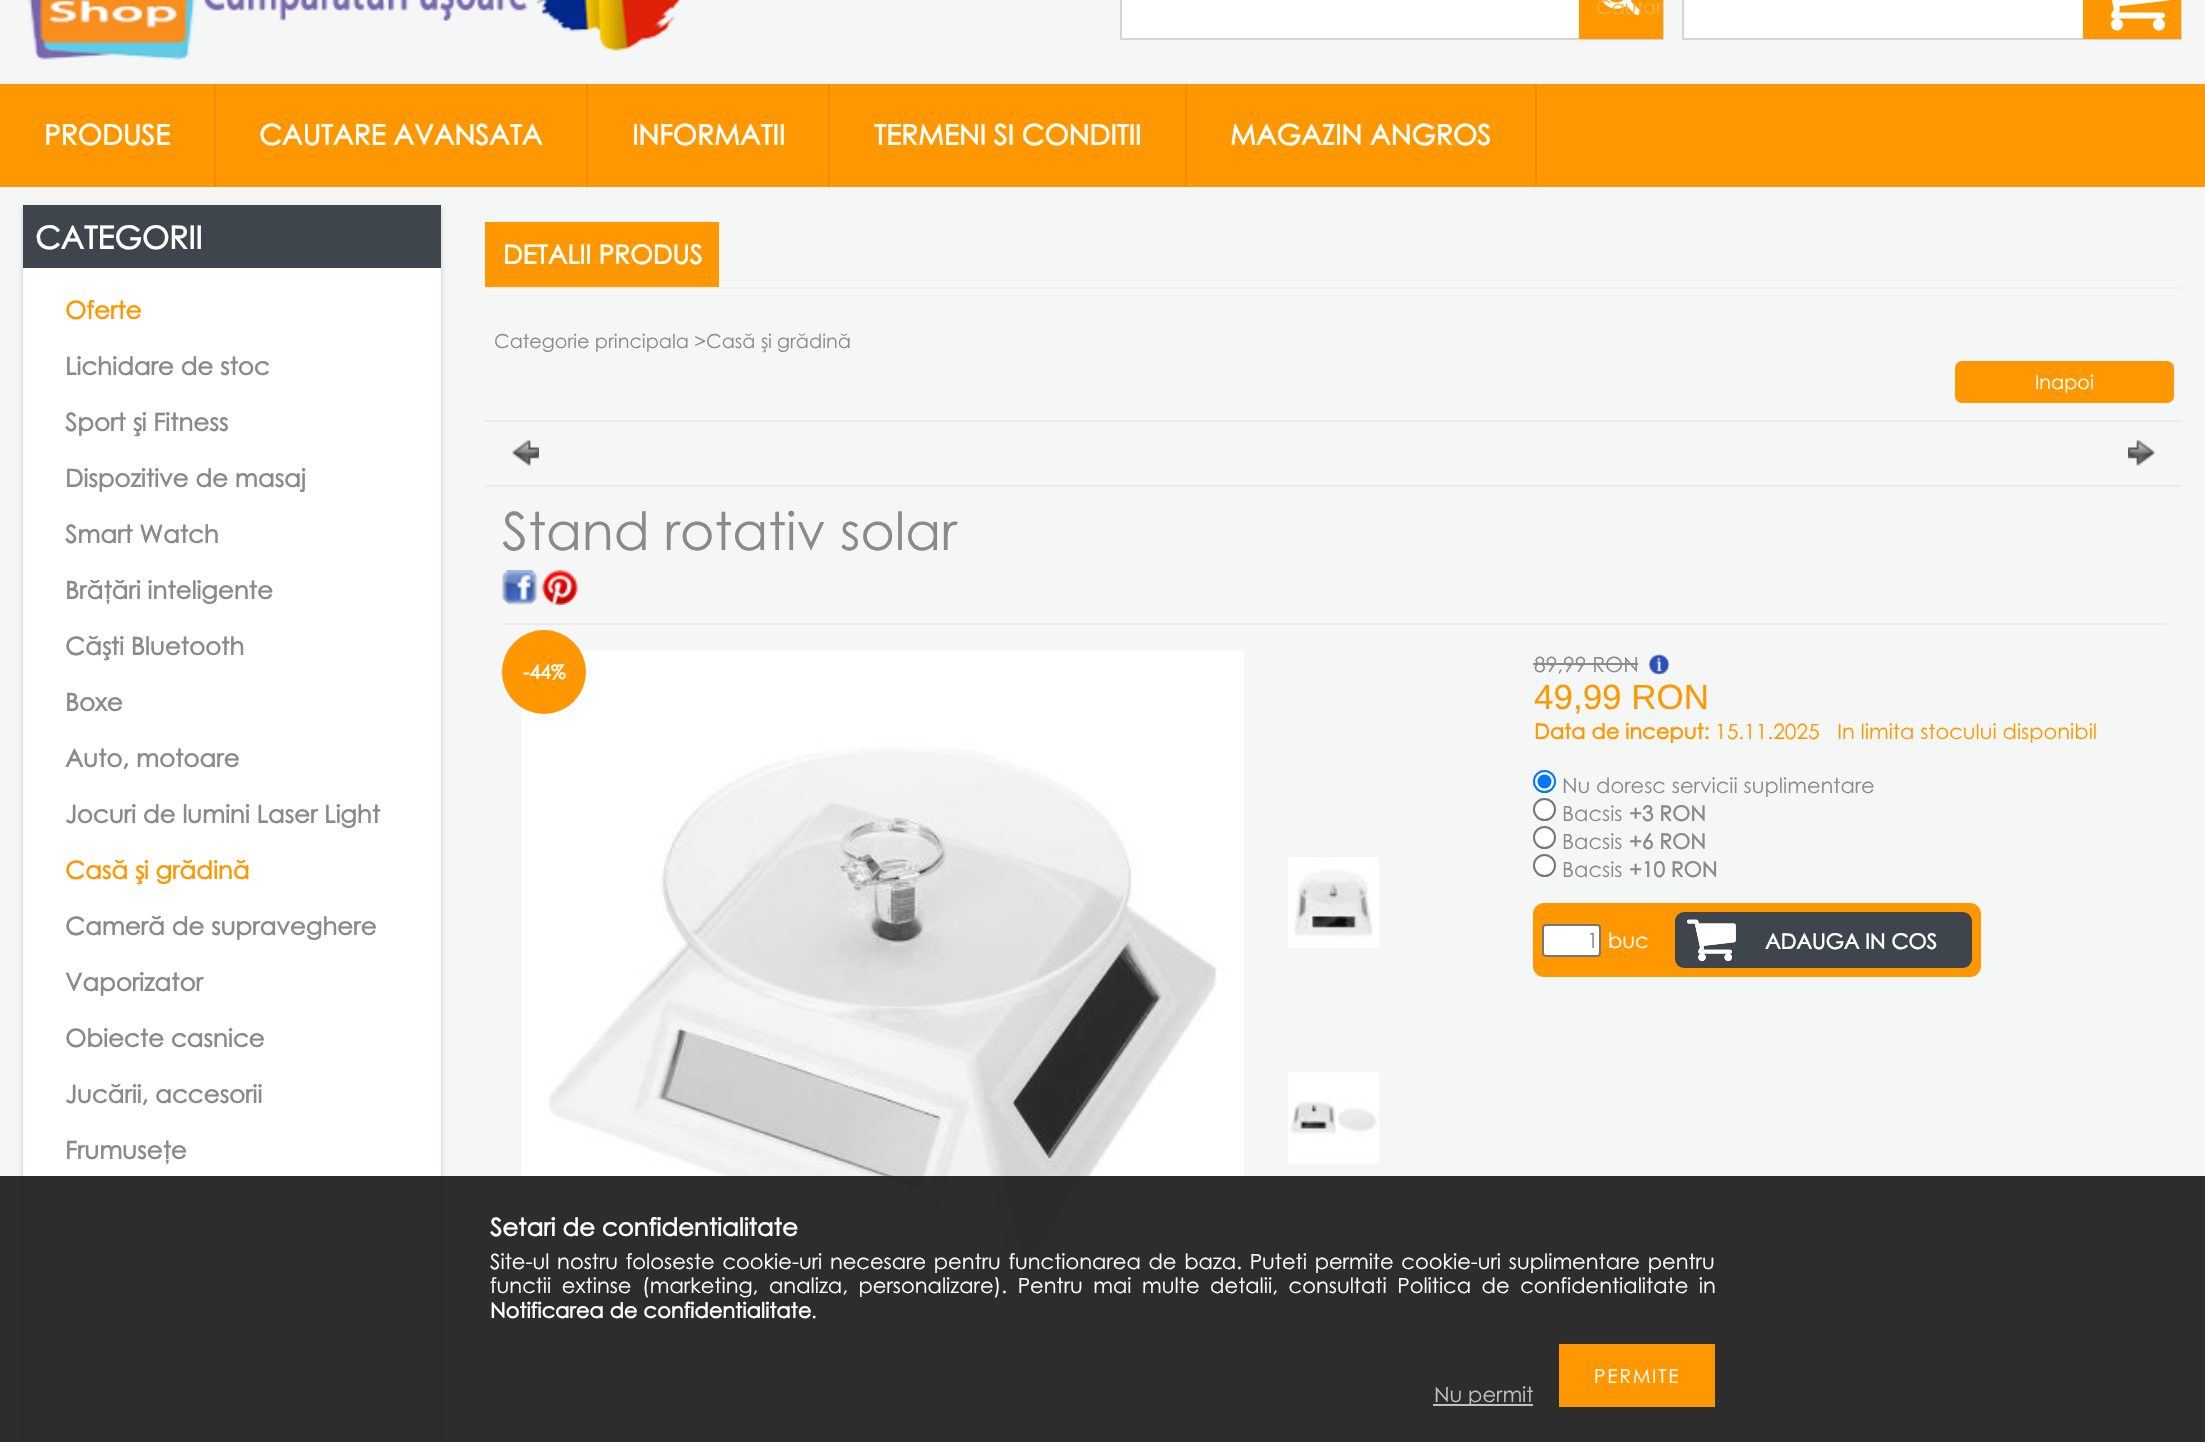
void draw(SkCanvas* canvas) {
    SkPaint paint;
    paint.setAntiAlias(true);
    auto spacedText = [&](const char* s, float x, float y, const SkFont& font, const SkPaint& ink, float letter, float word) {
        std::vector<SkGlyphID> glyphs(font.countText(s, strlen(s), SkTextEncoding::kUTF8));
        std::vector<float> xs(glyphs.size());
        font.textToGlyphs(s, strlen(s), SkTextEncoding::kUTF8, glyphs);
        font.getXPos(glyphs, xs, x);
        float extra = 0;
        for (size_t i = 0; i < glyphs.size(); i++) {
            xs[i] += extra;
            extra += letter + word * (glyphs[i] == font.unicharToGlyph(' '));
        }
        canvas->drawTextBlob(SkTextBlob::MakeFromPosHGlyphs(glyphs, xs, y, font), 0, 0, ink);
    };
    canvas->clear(0xFFF5F6F6);
    canvas->drawImageRect(SkImages::DeferredFromEncodedData(SkData::MakeFromFileName("img1.png")), SkRect::MakeXYWH(28, 0, 652, 60), SkSamplingOptions());
    paint.setColor(0xFFFFFFFF);
    canvas->drawRect(SkRect::MakeXYWH(1122, 0, 457, 38), paint);
    paint.setStyle(SkPaint::kStroke_Style);
    paint.setStrokeWidth(2);
    paint.setColor(0xFFD4D4D4);
    canvas->drawRect(SkRect::MakeXYWH(1121, -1, 542, 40), paint);
    paint.setStyle(SkPaint::kFill_Style);
    paint.setColor(0xFFFF9800);
    canvas->drawRect(SkRect::MakeXYWH(1579, 0, 84, 39), paint);
    canvas->drawImageRect(SkImages::DeferredFromEncodedData(SkData::MakeFromFileName("img2.png")), SkRect::MakeXYWH(1601, 0, 40, 15), SkSamplingOptions());
    SkFont font1(fontMgr->matchFamilyStyle("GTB", SkFontStyle::Normal()), 19.25f);
    font1.setSubpixel(true);
    paint.setColor(0xFFFFB13D);
    canvas->drawString("Cautar", 1596, 14, font1, paint);
    paint.setColor(0xFFFFFFFF);
    canvas->drawRect(SkRect::MakeXYWH(1684, 0, 399, 38), paint);
    paint.setStyle(SkPaint::kStroke_Style);
    paint.setColor(0xFFD4D4D4);
    canvas->drawRect(SkRect::MakeXYWH(1683, -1, 498, 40), paint);
    paint.setStyle(SkPaint::kFill_Style);
    paint.setColor(0xFFFF9800);
    canvas->drawRect(SkRect::MakeXYWH(2083, 0, 98, 39), paint);
    canvas->drawImageRect(SkImages::DeferredFromEncodedData(SkData::MakeFromFileName("img3.png")), SkRect::MakeXYWH(2111, 0, 59, 31), SkSamplingOptions());
    canvas->drawRect(SkRect::MakeXYWH(0, 84, 2205, 103), paint);
    paint.setColor(0xFFED8D00);
    canvas->drawRect(SkRect::MakeXYWH(214, 84, 2, 103), paint);
    SkFont font2(fontMgr->matchFamilyStyle("GTB", SkFontStyle::Bold()), 28);
    font2.setSubpixel(true);
    paint.setColor(0xFFFFFFFF);
    canvas->drawString("PRODUSE", 44, 145, font2, paint);
    paint.setColor(0xFFED8D00);
    canvas->drawRect(SkRect::MakeXYWH(586, 84, 2, 103), paint);
    paint.setColor(0xFFFFFFFF);
    canvas->drawString("CAUTARE AVANSATA", 259, 145, font2, paint);
    paint.setColor(0xFFED8D00);
    canvas->drawRect(SkRect::MakeXYWH(828, 84, 2, 103), paint);
    paint.setColor(0xFFFFFFFF);
    canvas->drawString("INFORMATII", 632, 145, font2, paint);
    paint.setColor(0xFFED8D00);
    canvas->drawRect(SkRect::MakeXYWH(1185, 84, 2, 103), paint);
    paint.setColor(0xFFFFFFFF);
    canvas->drawString("TERMENI SI CONDITII", 874, 145, font2, paint);
    paint.setColor(0xFFED8D00);
    canvas->drawRect(SkRect::MakeXYWH(1535, 84, 2, 103), paint);
    paint.setColor(0xFFFFFFFF);
    canvas->drawString("MAGAZIN ANGROS", 1230, 145, font2, paint);
    paint.setColor(0x33000000);
    paint.setMaskFilter(SkMaskFilter::MakeBlur(kNormal_SkBlurStyle, 2.5f));
    canvas->drawRect(SkRect::MakeXYWH(23, 208, 418, 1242), paint);
    paint.setMaskFilter(nullptr);
    paint.setColor(0xFF3E454C);
    canvas->drawRect(SkRect::MakeXYWH(23, 205, 418, 63), paint);
    SkFont font3(fontMgr->matchFamilyStyle("GTB", SkFontStyle::Bold()), 31.5f);
    font3.setSubpixel(true);
    paint.setColor(0xFFFFFFFF);
    canvas->drawString("CATEGORII", 35, 249, font3, paint);
    canvas->drawRect(SkRect::MakeXYWH(23, 268, 418, 1174), paint);
    SkFont font4(fontMgr->matchFamilyStyle("GTB", SkFontStyle::Bold()), 24.5f);
    font4.setSubpixel(true);
    paint.setColor(0xFFFF9800);
    canvas->drawString("Oferte", 65, 319, font4, paint);
    paint.setColor(0xFF8B8A8A);
    canvas->drawString("Lichidare de stoc", 65, 375, font4, paint);
    canvas->drawString("Sport și Fitness", 65, 431, font4, paint);
    canvas->drawString("Dispozitive de masaj", 65, 487, font4, paint);
    canvas->drawString("Smart Watch", 65, 543, font4, paint);
    canvas->drawString("Brățări inteligente", 65, 599, font4, paint);
    canvas->drawString("Căști Bluetooth", 65, 655, font4, paint);
    canvas->drawString("Boxe", 65, 711, font4, paint);
    canvas->drawString("Auto, motoare", 65, 767, font4, paint);
    canvas->drawString("Jocuri de lumini Laser Light", 65, 823, font4, paint);
    paint.setColor(0xFFFF9800);
    canvas->drawString("Casă și grădină", 65, 879, font4, paint);
    paint.setColor(0xFF8B8A8A);
    canvas->drawString("Cameră de supraveghere", 65, 935, font4, paint);
    canvas->drawString("Vaporizator", 65, 991, font4, paint);
    canvas->drawString("Obiecte casnice", 65, 1047, font4, paint);
    canvas->drawString("Jucării, accesorii", 65, 1103, font4, paint);
    canvas->drawString("Frumusețe", 65, 1159, font4, paint);
    paint.setColor(0xFFEFEFEF);
    canvas->drawRect(SkRect::MakeXYWH(485, 287, 1697, 2), paint);
    paint.setColor(0xFFFF9800);
    canvas->drawRect(SkRect::MakeXYWH(485, 222, 234, 65), paint);
    SkFont font5(fontMgr->matchFamilyStyle("GTB", SkFontStyle::Bold()), 26.25f);
    font5.setSubpixel(true);
    paint.setColor(0xFFFFFFFF);
    canvas->drawString("DETALII PRODUS", 503, 264, font5, paint);
    paint.setColor(0xFF8B8A8A);
    canvas->drawString("Categorie principala >Casă și grădină", 494, 348, font1, paint);
    paint.setColor(0xFFFF9800);
    canvas->drawRoundRect(SkRect::MakeXYWH(1955, 361, 219, 42), 7, 7, paint);
    paint.setColor(0xFFFFFFFF);
    canvas->drawString("Inapoi", 2035, 389, font1, paint);
    paint.setColor(0xFFECEAEA);
    canvas->drawRect(SkRect::MakeXYWH(485, 420, 1697, 2), paint);
    canvas->drawImageRect(SkImages::DeferredFromEncodedData(SkData::MakeFromFileName("img4.png")), SkRect::MakeXYWH(512, 440, 27, 26), SkSamplingOptions());
    canvas->drawImageRect(SkImages::DeferredFromEncodedData(SkData::MakeFromFileName("img5.png")), SkRect::MakeXYWH(2128, 440, 27, 26), SkSamplingOptions());
    canvas->drawRect(SkRect::MakeXYWH(485, 485, 1697, 2), paint);
    canvas->drawRect(SkRect::MakeXYWH(502, 623, 1665, 2), paint);
    SkFont font6(fontMgr->matchFamilyStyle("GTB", SkFontStyle::Normal()), 52.5f);
    font6.setSubpixel(true);
    paint.setColor(0xFF8B8A8A);
    canvas->drawString("Stand rotativ solar", 502, 550, font6, paint);
    canvas->drawImageRect(SkImages::DeferredFromEncodedData(SkData::MakeFromFileName("img6.png")), SkRect::MakeXYWH(502, 570, 36, 35), SkSamplingOptions());
    canvas->drawImageRect(SkImages::DeferredFromEncodedData(SkData::MakeFromFileName("img7.png")), SkRect::MakeXYWH(542, 570, 36, 35), SkSamplingOptions());
    canvas->drawImageRect(SkImages::DeferredFromEncodedData(SkData::MakeFromFileName("img8.png")), SkRect::MakeXYWH(521, 650, 723, 725), SkSamplingOptions());
    canvas->drawImageRect(SkImages::DeferredFromEncodedData(SkData::MakeFromFileName("img9.png")), SkRect::MakeXYWH(1288, 857, 91, 91), SkSamplingOptions());
    canvas->drawImageRect(SkImages::DeferredFromEncodedData(SkData::MakeFromFileName("img10.png")), SkRect::MakeXYWH(1288, 1072, 91, 91), SkSamplingOptions());
    paint.setColor(0xFFFF9800);
    canvas->drawCircle(544, 672, 42, paint);
    SkFont font7(fontMgr->matchFamilyStyle("GTB", SkFontStyle::Bold()), 19.25f);
    font7.setSubpixel(true);
    paint.setColor(0xFFFFFFFF);
    canvas->drawString("-44%", 523, 679, font7, paint);
    SkFont font8(fontMgr->matchFamilyStyle("GTB", SkFontStyle::Normal()), 21);
    font8.setSubpixel(true);
    paint.setColor(0xFF8B8A8A);
    canvas->drawString("89,99 RON", 1534, 672, font8, paint);
    canvas->drawRect(SkRect::MakeXYWH(1533, 663, 105, 2), paint);
    canvas->drawImageRect(SkImages::DeferredFromEncodedData(SkData::MakeFromFileName("img11.png")), SkRect::MakeXYWH(1648, 654, 22, 21), SkSamplingOptions());
    SkFont font9(fontMgr->matchFamilyStyle("Liberation Sans", SkFontStyle::Normal()), 35);
    font9.setSubpixel(true);
    paint.setColor(0xFFFF9800);
    canvas->drawString("49,99 RON", 1534, 709, font9, paint);
    SkFont font10(fontMgr->matchFamilyStyle("GTB", SkFontStyle::Bold()), 21);
    font10.setSubpixel(true);
    canvas->drawString("Data de inceput:", 1534, 739, font10, paint);
    canvas->drawString("15.11.2025   In limita stocului disponibil", 1715, 739, font8, paint);
    paint.setColor(0xFFFFFFFF);
    canvas->drawCircle(1544.5f, 781.5f, 10.5f, paint);
    paint.setStyle(SkPaint::kStroke_Style);
    paint.setColor(0xFF0075FF);
    canvas->drawCircle(1544.5f, 781.5f, 10.5f, paint);
    paint.setStyle(SkPaint::kFill_Style);
    canvas->drawCircle(1544.5f, 781.5f, 7, paint);
    paint.setColor(0xFF8B8A8A);
    canvas->drawString("Nu doresc servicii suplimentare", 1562, 793, font8, paint);
    paint.setColor(0xFFFFFFFF);
    canvas->drawCircle(1544.5f, 809.5f, 10.5f, paint);
    paint.setStyle(SkPaint::kStroke_Style);
    paint.setColor(0xFF767676);
    canvas->drawCircle(1544.5f, 809.5f, 10.5f, paint);
    paint.setStyle(SkPaint::kFill_Style);
    paint.setColor(0xFF8B8A8A);
    canvas->drawString("Bacsis", 1562, 821, font8, paint);
    canvas->drawString("+3 RON", 1629, 821, font10, paint);
    paint.setColor(0xFFFFFFFF);
    canvas->drawCircle(1544.5f, 837.5f, 10.5f, paint);
    paint.setStyle(SkPaint::kStroke_Style);
    paint.setColor(0xFF767676);
    canvas->drawCircle(1544.5f, 837.5f, 10.5f, paint);
    paint.setStyle(SkPaint::kFill_Style);
    paint.setColor(0xFF8B8A8A);
    canvas->drawString("Bacsis", 1562, 849, font8, paint);
    canvas->drawString("+6 RON", 1629, 849, font10, paint);
    paint.setColor(0xFFFFFFFF);
    canvas->drawCircle(1544.5f, 865.5f, 10.5f, paint);
    paint.setStyle(SkPaint::kStroke_Style);
    paint.setColor(0xFF767676);
    canvas->drawCircle(1544.5f, 865.5f, 10.5f, paint);
    paint.setStyle(SkPaint::kFill_Style);
    paint.setColor(0xFF8B8A8A);
    canvas->drawString("Bacsis", 1562, 877, font8, paint);
    canvas->drawString("+10 RON", 1629, 877, font10, paint);
    paint.setColor(0xFFFF9800);
    canvas->drawRoundRect(SkRect::MakeXYWH(1533, 903, 448, 74), 11, 11, paint);
    paint.setColor(0xFFFFFFFF);
    canvas->drawRoundRect(SkRect::MakeXYWH(1543, 925, 57, 31), 3, 3, paint);
    paint.setStyle(SkPaint::kStroke_Style);
    paint.setColor(0xFF767676);
    canvas->drawRoundRect(SkRect::MakeXYWH(1543, 925, 57, 31), 3, 3, paint);
    paint.setStyle(SkPaint::kFill_Style);
    paint.setColor(0xFF8B8A8A);
    canvas->drawString("1", 1587, 948, font8, paint);
    paint.setColor(0xFFFFFFFF);
    canvas->drawString("buc", 1608, 948, font8, paint);
    paint.setColor(0xFF3E454C);
    canvas->drawRoundRect(SkRect::MakeXYWH(1675, 912, 297, 56), 9, 9, paint);
    canvas->drawImageRect(SkImages::DeferredFromEncodedData(SkData::MakeFromFileName("img12.png")), SkRect::MakeXYWH(1687, 919, 49, 42), SkSamplingOptions());
    canvas->drawImageRect(SkImages::DeferredFromEncodedData(SkData::MakeFromFileName("img13.png")), SkRect::MakeXYWH(1687, 919, 49, 42), SkSamplingOptions());
    paint.setColor(0xFFFFFFFF);
    canvas->drawString("ADAUGA IN COS", 1765, 949, font10, paint);
    paint.setColor(0xF2222222);
    canvas->drawRect(SkRect::MakeXYWH(0, 1176, 2205, 266), paint);
    paint.setColor(0xFFFFFFFF);
    canvas->drawString("Setari de confidentialitate", 490, 1236, font4, paint);
    spacedText("Site-ul nostru foloseste cookie-uri necesare pentru functionarea de baza. Puteti permite cookie-uri suplimentare pentru", 490, 1269, font8, paint, 0, 1.9f);
    spacedText("functii extinse (marketing, analiza, personalizare). Pentru mai multe detalii, consultati Politica de confidentialitate in", 490, 1293, font8, paint, 0, 4.75f);
    canvas->drawString("Notificarea de confidentialitate", 490, 1318, font10, paint);
    canvas->drawString(".", 811, 1318, font8, paint);
    paint.setColor(0xFFFF9800);
    canvas->drawRect(SkRect::MakeXYWH(1559, 1344, 156, 63), paint);
    paint.setColor(0xFFFFFFFF);
    spacedText("PERMITE", 1594, 1383, font1, paint, 1.75f, 0);
    paint.setColor(0xB3FFFFFF);
    canvas->drawRect(SkRect::MakeXYWH(1433, 1404, 100, 2), paint);
    paint.setColor(0xFFC0C0C0);
    canvas->drawString("Nu permit", 1434, 1402, font8, paint);
}
